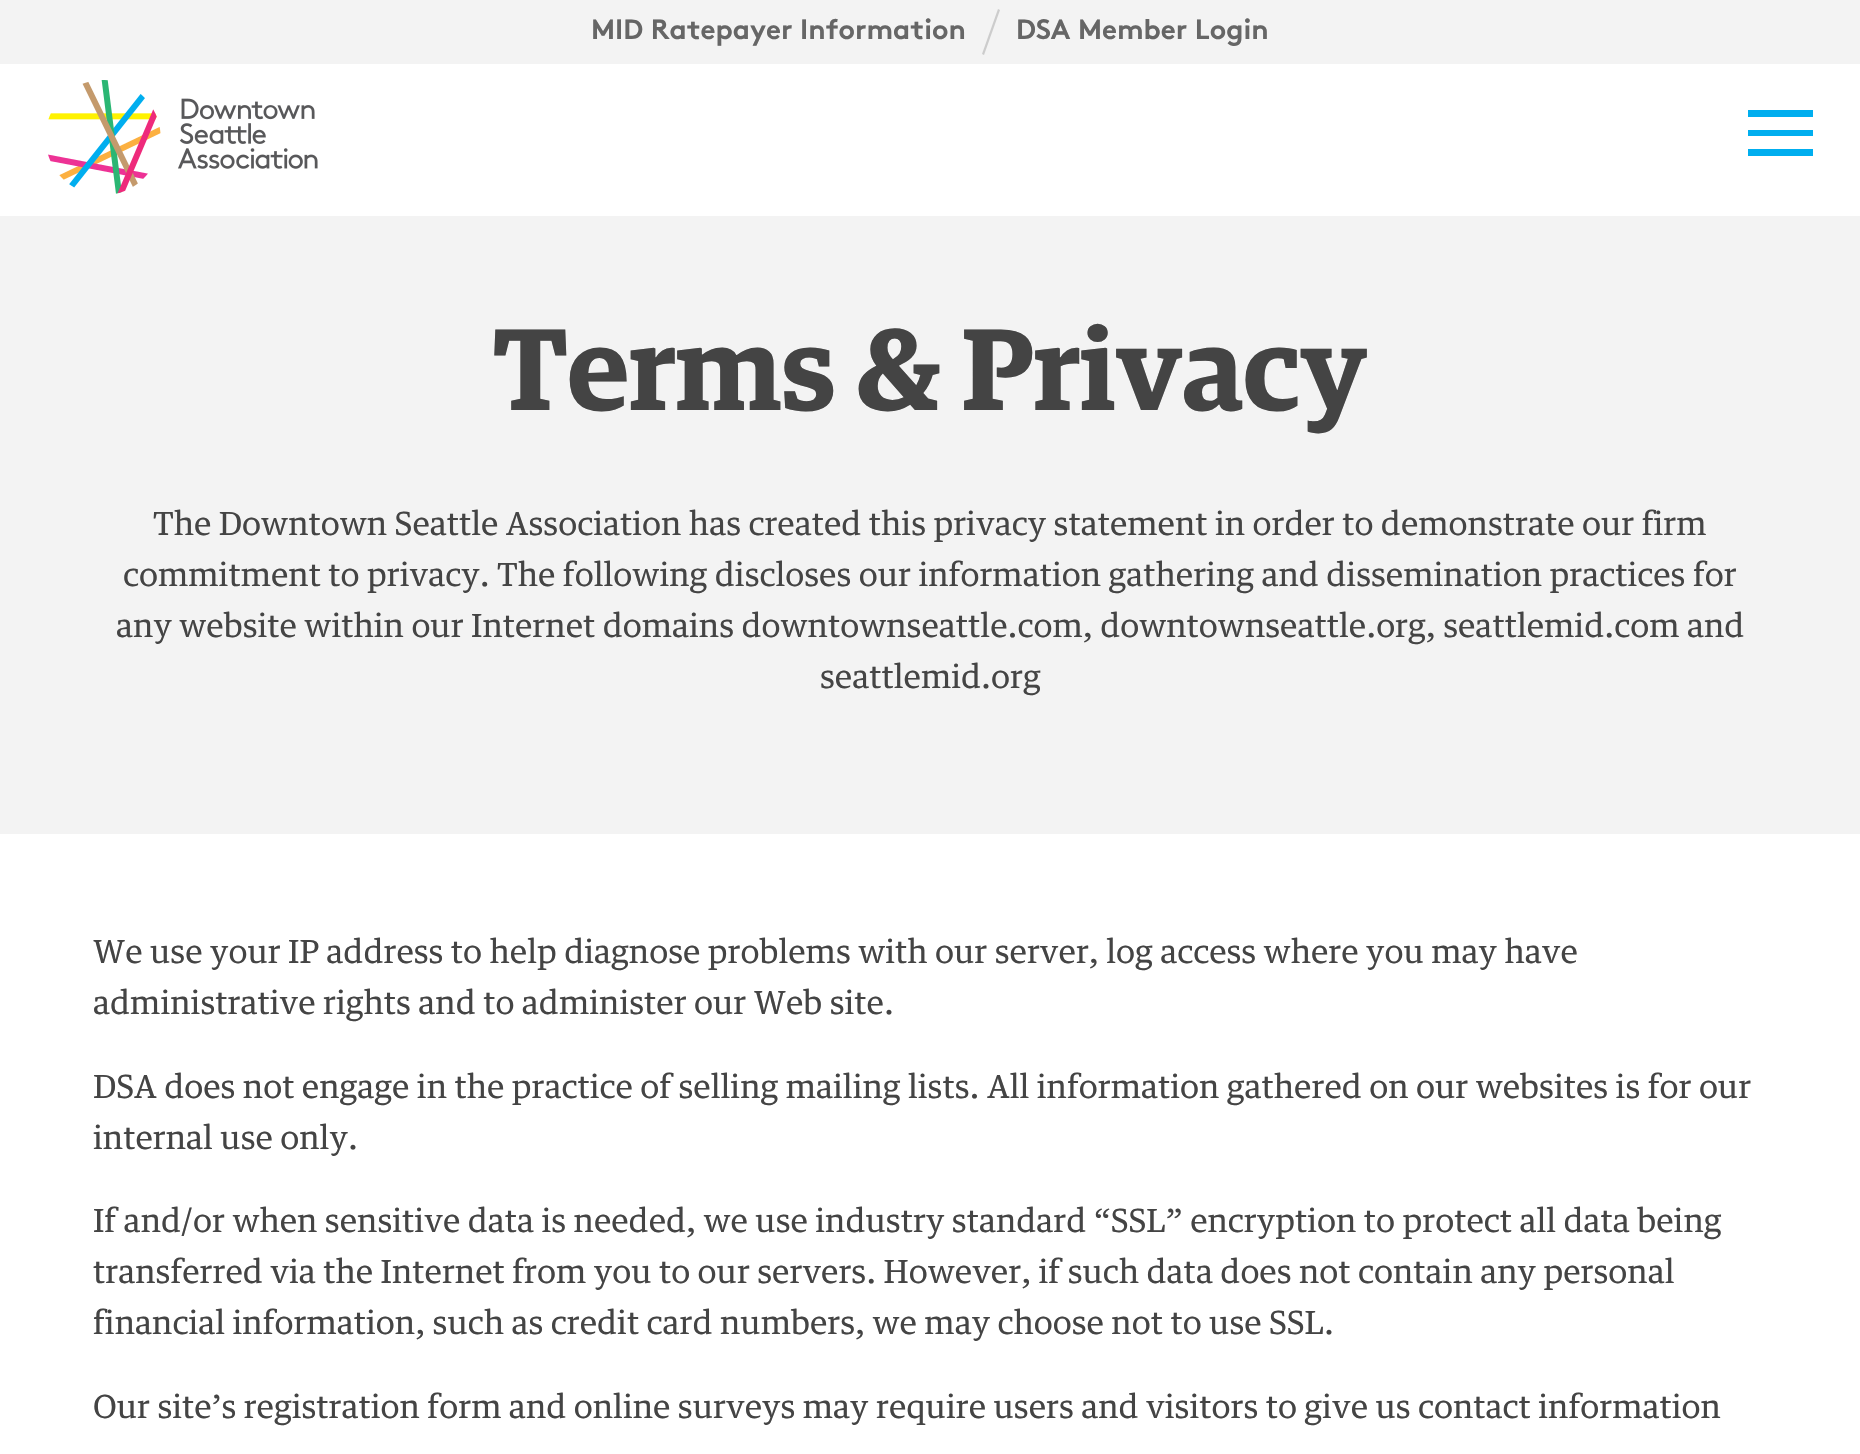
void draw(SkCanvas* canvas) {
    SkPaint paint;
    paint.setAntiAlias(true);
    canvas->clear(0xFFFFFFFF);
    paint.setColor(0xFFF3F3F3);
    canvas->drawRect(SkRect::MakeXYWH(0, 0, 1860, 64), paint);
    SkFont font1(fontMgr->matchFamilyStyle("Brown", SkFontStyle::Bold()), 28);
    font1.setSubpixel(true);
    paint.setColor(0xFF666666);
    canvas->drawString("MID Ratepayer Information", 591, 39, font1, paint);
    paint.setColor(0xFFCCCCCC);
    canvas->drawPath(SkPathBuilder().moveTo(998, 9).lineTo(1000, 10).lineTo(984, 55).lineTo(982, 54).close().detach(), paint);
    paint.setColor(0xFF666666);
    canvas->drawString("DSA Member Login", 1016, 39, font1, paint);
    canvas->drawImageRect(SkImages::DeferredFromEncodedData(SkData::MakeFromFileName("img1.png")), SkRect::MakeXYWH(48, 80, 270, 114), SkSamplingOptions());
    paint.setColor(0xFF00AEEF);
    canvas->drawPath(SkPathBuilder().moveTo(1748, 136).lineTo(1748, 130).lineTo(1813, 130).lineTo(1813, 136).close().moveTo(1748, 117).lineTo(1748, 110).lineTo(1813, 110).lineTo(1813, 117).close().moveTo(1748, 156).lineTo(1748, 149).lineTo(1813, 149).lineTo(1813, 156).close().detach(), paint);
    paint.setColor(0xFFF3F3F3);
    canvas->drawRect(SkRect::MakeXYWH(0, 216, 1860, 618), paint);
    SkFont font2(fontMgr->matchFamilyStyle("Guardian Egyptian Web", SkFontStyle(600, SkFontStyle::kNormal_Width, SkFontStyle::kUpright_Slant)), 116);
    font2.setSubpixel(true);
    paint.setColor(0xFF444444);
    canvas->drawString("Terms & Privacy", 493, 410, font2, paint);
    SkFont font3(fontMgr->matchFamilyStyle("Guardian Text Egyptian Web", SkFontStyle::Normal()), 32);
    font3.setSubpixel(true);
    canvas->drawString("The Downtown Seattle Association has created this privacy statement in order to demonstrate our firm", 153, 535, font3, paint);
    canvas->drawString("commitment to privacy. The following discloses our information gathering and dissemination practices for", 123, 586, font3, paint);
    canvas->drawString("any website within our Internet domains downtownseattle.com, downtownseattle.org, seattlemid.com and", 116, 637, font3, paint);
    canvas->drawString("seattlemid.org", 820, 688, font3, paint);
    canvas->drawString("We use your IP address to help diagnose problems with our server, log access where you may have", 93, 963, font3, paint);
    canvas->drawString("administrative rights and to administer our Web site.", 93, 1014, font3, paint);
    canvas->drawString("DSA does not engage in the practice of selling mailing lists. All information gathered on our websites is for our", 93, 1098, font3, paint);
    canvas->drawString("internal use only.", 93, 1149, font3, paint);
    canvas->drawString("If and/or when sensitive data is needed, we use industry standard “SSL” encryption to protect all data being", 93, 1232, font3, paint);
    canvas->drawString("transferred via the Internet from you to our servers. However, if such data does not contain any personal", 93, 1283, font3, paint);
    canvas->drawString("financial information, such as credit card numbers, we may choose not to use SSL.", 93, 1334, font3, paint);
    canvas->drawString("Our site’s registration form and online surveys may require users and visitors to give us contact information", 93, 1418, font3, paint);
}
